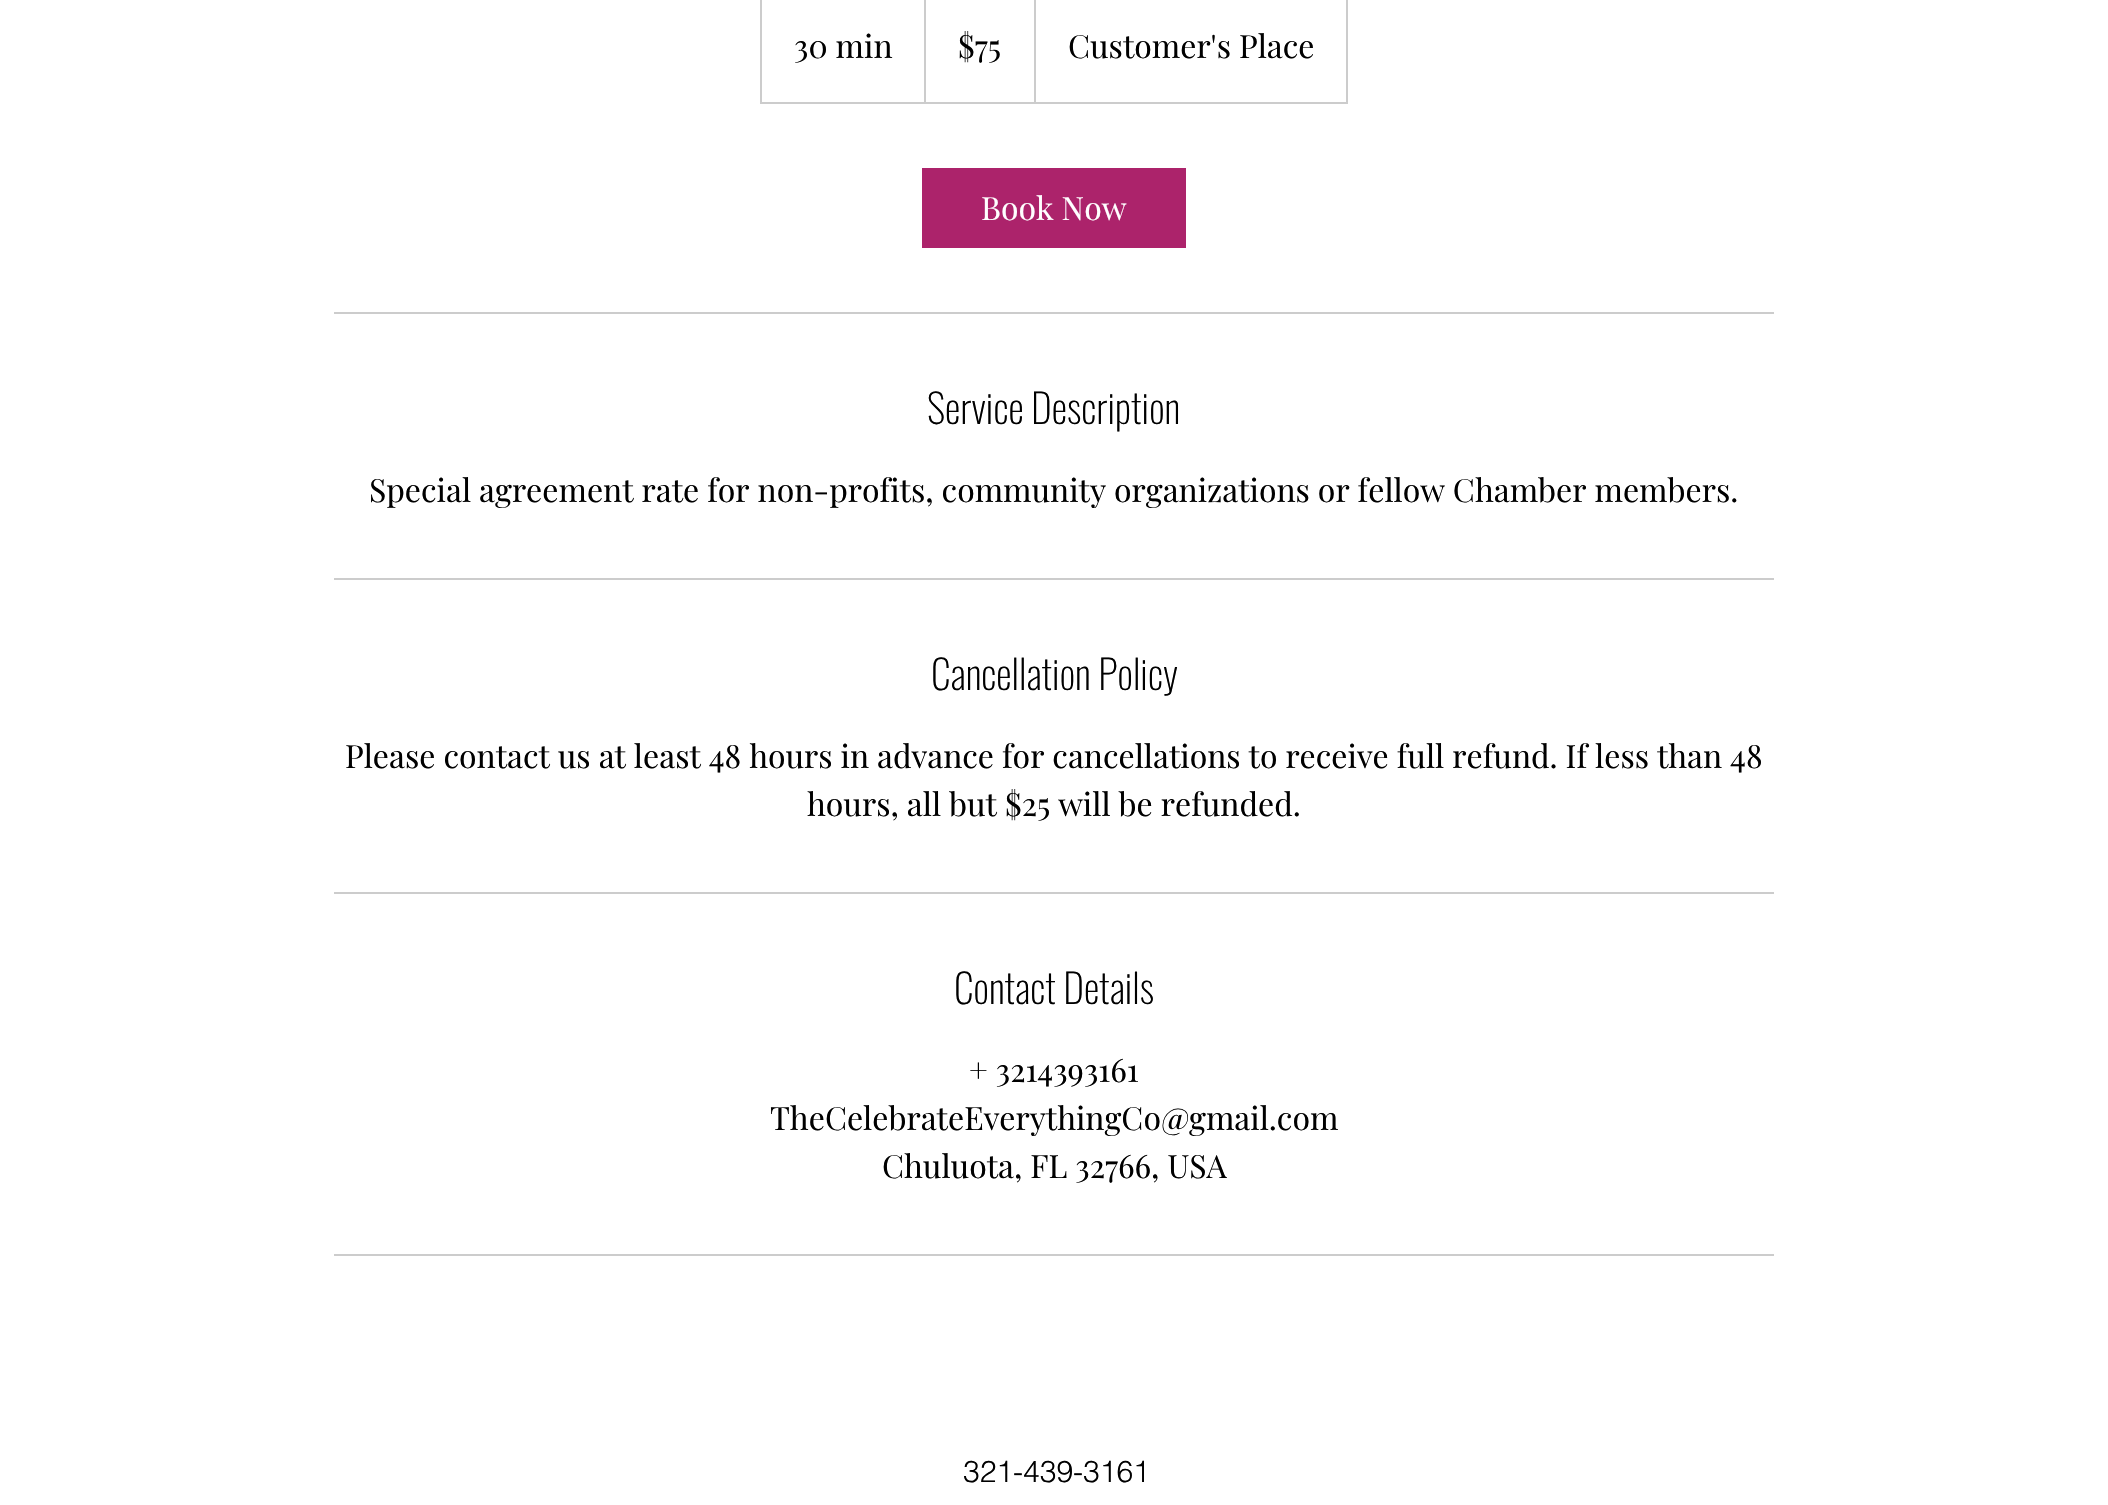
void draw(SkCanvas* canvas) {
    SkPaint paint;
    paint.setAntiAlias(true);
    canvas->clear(0xFFFFFFFF);
    paint.setStyle(SkPaint::kStroke_Style);
    paint.setStrokeWidth(2);
    paint.setColor(0xFFCCCCCC);
    canvas->drawRect(SkRect::MakeXYWH(761, -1, 586, 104), paint);
    SkFont font1(fontMgr->matchFamilyStyle("Playfair Display", SkFontStyle::Normal()), 32);
    font1.setSubpixel(true);
    paint.setStyle(SkPaint::kFill_Style);
    paint.setColor(0xFF000000);
    canvas->drawString("30 min", 794, 58, font1, paint);
    paint.setColor(0xFFCCCCCC);
    canvas->drawPath(SkPathBuilder().moveTo(924, 102).lineTo(924, -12).lineTo(926, -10).lineTo(926, 102).close().detach(), paint);
    paint.setColor(0xFF000000);
    canvas->drawString("$75", 958, 58, font1, paint);
    paint.setColor(0xFFCCCCCC);
    canvas->drawPath(SkPathBuilder().moveTo(1034, 102).lineTo(1034, -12).lineTo(1036, -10).lineTo(1036, 102).close().detach(), paint);
    paint.setColor(0xFF000000);
    canvas->drawString("Customer's Place", 1068, 58, font1, paint);
    paint.setColor(0xFFAC236B);
    canvas->drawRect(SkRect::MakeXYWH(922, 168, 264, 80), paint);
    paint.setColor(0xFFFFFFFF);
    canvas->drawString("Book Now", 981, 220, font1, paint);
    paint.setColor(0xFFCCCCCC);
    canvas->drawRect(SkRect::MakeXYWH(334, 312, 1440, 2), paint);
    SkFont font2(fontMgr->matchFamilyStyle("Oswald", SkFontStyle(200, SkFontStyle::kNormal_Width, SkFontStyle::kUpright_Slant)), 40);
    font2.setSubpixel(true);
    paint.setColor(0xFF000000);
    canvas->drawString("Service Description", 927, 424, font2, paint);
    canvas->drawString("Special agreement rate for non-profits, community organizations or fellow Chamber members.", 369, 502, font1, paint);
    paint.setColor(0xFFCCCCCC);
    canvas->drawRect(SkRect::MakeXYWH(334, 578, 1440, 2), paint);
    paint.setColor(0xFF000000);
    canvas->drawString("Cancellation Policy", 931, 690, font2, paint);
    canvas->drawString("Please contact us at least 48 hours in advance for cancellations to receive full refund. If less than 48", 345, 768, font1, paint);
    canvas->drawString("hours, all but $25 will be refunded.", 807, 816, font1, paint);
    paint.setColor(0xFFCCCCCC);
    canvas->drawRect(SkRect::MakeXYWH(334, 892, 1440, 2), paint);
    paint.setColor(0xFF000000);
    canvas->drawString("Contact Details", 954, 1004, font2, paint);
    canvas->drawString("+ 3214393161", 969, 1082, font1, paint);
    canvas->drawString("TheCelebrateEverythingCo@gmail.com", 770, 1130, font1, paint);
    canvas->drawString("Chuluota, FL 32766, USA", 882, 1178, font1, paint);
    paint.setColor(0xFFCCCCCC);
    canvas->drawRect(SkRect::MakeXYWH(334, 1254, 1440, 2), paint);
    SkFont font3(fontMgr->matchFamilyStyle("helvetica", SkFontStyle(300, SkFontStyle::kNormal_Width, SkFontStyle::kUpright_Slant)), 30);
    font3.setSubpixel(true);
    paint.setColor(0xFF000000);
    canvas->drawString("321-439-3161", 963, 1482, font3, paint);
}
